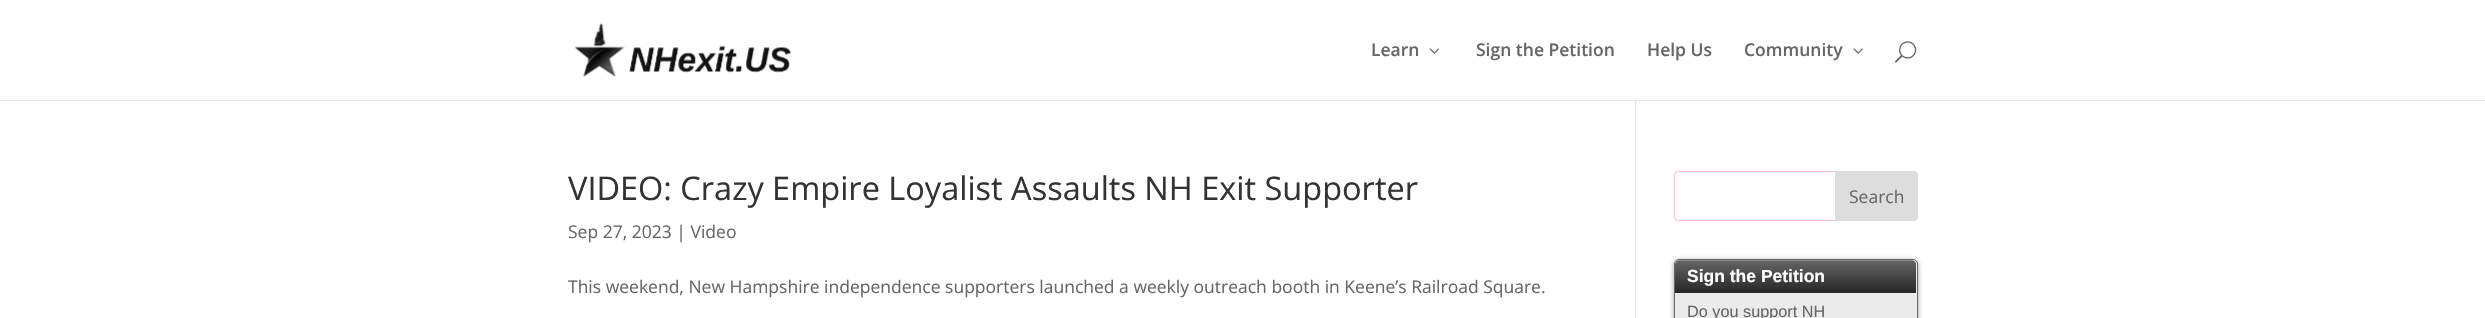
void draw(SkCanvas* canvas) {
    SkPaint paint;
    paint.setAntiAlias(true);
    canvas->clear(0xFFFFFFFF);
    paint.setColor(0xFFE6E6E6);
    canvas->drawRect(SkRect::MakeXYWH(0, 100, 2485, 1), paint);
    paint.setColor(0xFFE2E2E2);
    canvas->drawRect(SkRect::MakeXYWH(1635, 99, 1, 219), paint);
    paint.setColor(0xFFFFFFFF);
    canvas->drawRect(SkRect::MakeXYWH(1635, 99, 1, 1), paint);
    canvas->drawImageRect(SkImages::DeferredFromEncodedData(SkData::MakeFromFileName("img1.png")), SkRect::MakeXYWH(574, 23, 218, 54), SkSamplingOptions());
    SkFont font1(fontMgr->matchFamilyStyle("Open Sans", SkFontStyle(600, SkFontStyle::kNormal_Width, SkFontStyle::kUpright_Slant)), 17.5f);
    font1.setSubpixel(true);
    paint.setColor(0xFF666666);
    canvas->drawString("Learn", 1371, 56, font1, paint);
    canvas->drawImageRect(SkImages::DeferredFromEncodedData(SkData::MakeFromFileName("img2.png")), SkRect::MakeXYWH(1429, 48, 10, 6), SkSamplingOptions());
    canvas->drawString("Sign the Petition", 1476, 56, font1, paint);
    canvas->drawString("Help Us", 1647, 56, font1, paint);
    canvas->drawString("Community", 1744, 56, font1, paint);
    canvas->drawImageRect(SkImages::DeferredFromEncodedData(SkData::MakeFromFileName("img3.png")), SkRect::MakeXYWH(1853, 48, 10, 6), SkSamplingOptions());
    canvas->drawImageRect(SkImages::DeferredFromEncodedData(SkData::MakeFromFileName("img4.png")), SkRect::MakeXYWH(1895, 41, 22, 22), SkSamplingOptions());
    paint.setColor(0xFFCBCBCB);
    canvas->drawRect(SkRect::MakeXYWH(1635, 100, 1, 1), paint);
    SkFont font2(fontMgr->matchFamilyStyle("Open Sans", SkFontStyle::Normal()), 32.5f);
    font2.setSubpixel(true);
    paint.setColor(0xFF333333);
    canvas->drawString("VIDEO: Crazy Empire Loyalist Assaults NH Exit Supporter", 568, 200, font2, paint);
    SkFont font3(fontMgr->matchFamilyStyle("Open Sans", SkFontStyle::Normal()), 17.5f);
    font3.setSubpixel(true);
    paint.setColor(0xFF666666);
    canvas->drawString("Sep 27, 2023 | Video", 568, 238, font3, paint);
    canvas->drawString("This weekend, New Hampshire independence supporters launched a weekly outreach booth in Keene’s Railroad Square.", 568, 293, font3, paint);
    paint.setStyle(SkPaint::kStroke_Style);
    paint.setStrokeWidth(1);
    paint.setColor(0xFFFFC0CB);
    canvas->drawRoundRect(SkRect::MakeXYWH(1674.5f, 171.5f, 243, 49), 3.5f, 3.5f, paint);
    paint.setStyle(SkPaint::kFill_Style);
    paint.setColor(0xFFDDDDDD);
    canvas->drawPath(SkPathBuilder().moveTo(1835.5f, 171.5f).lineTo(1914, 171.5f).cubicTo(1916, 171.5f, 1917.5f, 173, 1917.5f, 175).lineTo(1917.5f, 217).cubicTo(1917.5f, 219, 1916, 220.5f, 1914, 220.5f).lineTo(1835.5f, 220.5f).close().detach(), paint);
    paint.setStyle(SkPaint::kStroke_Style);
    canvas->drawPath(SkPathBuilder().moveTo(1835.5f, 171.5f).lineTo(1914, 171.5f).cubicTo(1916, 171.5f, 1917.5f, 173, 1917.5f, 175).lineTo(1917.5f, 217).cubicTo(1917.5f, 219, 1916, 220.5f, 1914, 220.5f).lineTo(1835.5f, 220.5f).close().detach(), paint);
    paint.setStyle(SkPaint::kFill_Style);
    paint.setColor(0xFF666666);
    canvas->drawString("Search", 1849, 203, font3, paint);
    paint.setColor(0x66000000);
    paint.setMaskFilter(SkMaskFilter::MakeBlur(kNormal_SkBlurStyle, 2.5f));
    canvas->drawRoundRect(SkRect::MakeXYWH(1674, 260, 244, 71), 5, 5, paint);
    paint.setMaskFilter(nullptr);
    paint.setColor(0xFFEBEBEB);
    canvas->drawRoundRect(SkRect::MakeXYWH(1674.5f, 259.5f, 243, 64), 4.5f, 4.5f, paint);
    paint.setStyle(SkPaint::kStroke_Style);
    paint.setColor(0xFF666666);
    canvas->drawRoundRect(SkRect::MakeXYWH(1674.5f, 259.5f, 243, 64), 4.5f, 4.5f, paint);
    paint.setStyle(SkPaint::kFill_Style);
    {
        const SkColor colors[] = {0xFF666666, 0xFF262626};
        const float stops[] = {0, 1};
        const SkPoint ends[] = {{1796, 260}, {1796, 293}};
        paint.setShader(SkGradientShader::MakeLinear(ends, colors, stops, 2, SkTileMode::kClamp));
        paint.setAlpha(255);
    }
    canvas->drawPath(SkPathBuilder().moveTo(1679, 260).lineTo(1912, 260).cubicTo(1914, 260, 1916, 262, 1916, 264).lineTo(1916, 293).lineTo(1675, 293).lineTo(1675, 264).cubicTo(1675, 262, 1677, 260, 1679, 260).close().detach(), paint);
    paint.setShader(nullptr);
    paint.setColor(0x40FFFFFF);
    canvas->drawPath(SkPathBuilder().moveTo(1679, 261).lineTo(1912, 261).cubicTo(1915, 261, 1916, 263, 1916, 265).cubicTo(1916, 262, 1915, 260, 1912, 260).lineTo(1679, 260).cubicTo(1676, 260, 1675, 262, 1675, 265).cubicTo(1675, 263, 1677, 261, 1679, 261).close().detach(), paint);
    paint.setColor(0xFFF0F0F0);
    canvas->drawRect(SkRect::MakeXYWH(1675, 293, 241, 1), paint);
    SkFont font4(fontMgr->matchFamilyStyle("Liberation Sans", SkFontStyle::Bold()), 17.5f);
    font4.setSubpixel(true);
    paint.setColor(0xFFFFFFFF);
    canvas->drawString("Sign the Petition", 1687, 282, font4, paint);
    SkFont font5(fontMgr->matchFamilyStyle("Liberation Sans", SkFontStyle::Normal()), 16.25f);
    font5.setSubpixel(true);
    paint.setColor(0xFF666666);
    canvas->drawString("Do you support NH", 1687, 317, font5, paint);
}
